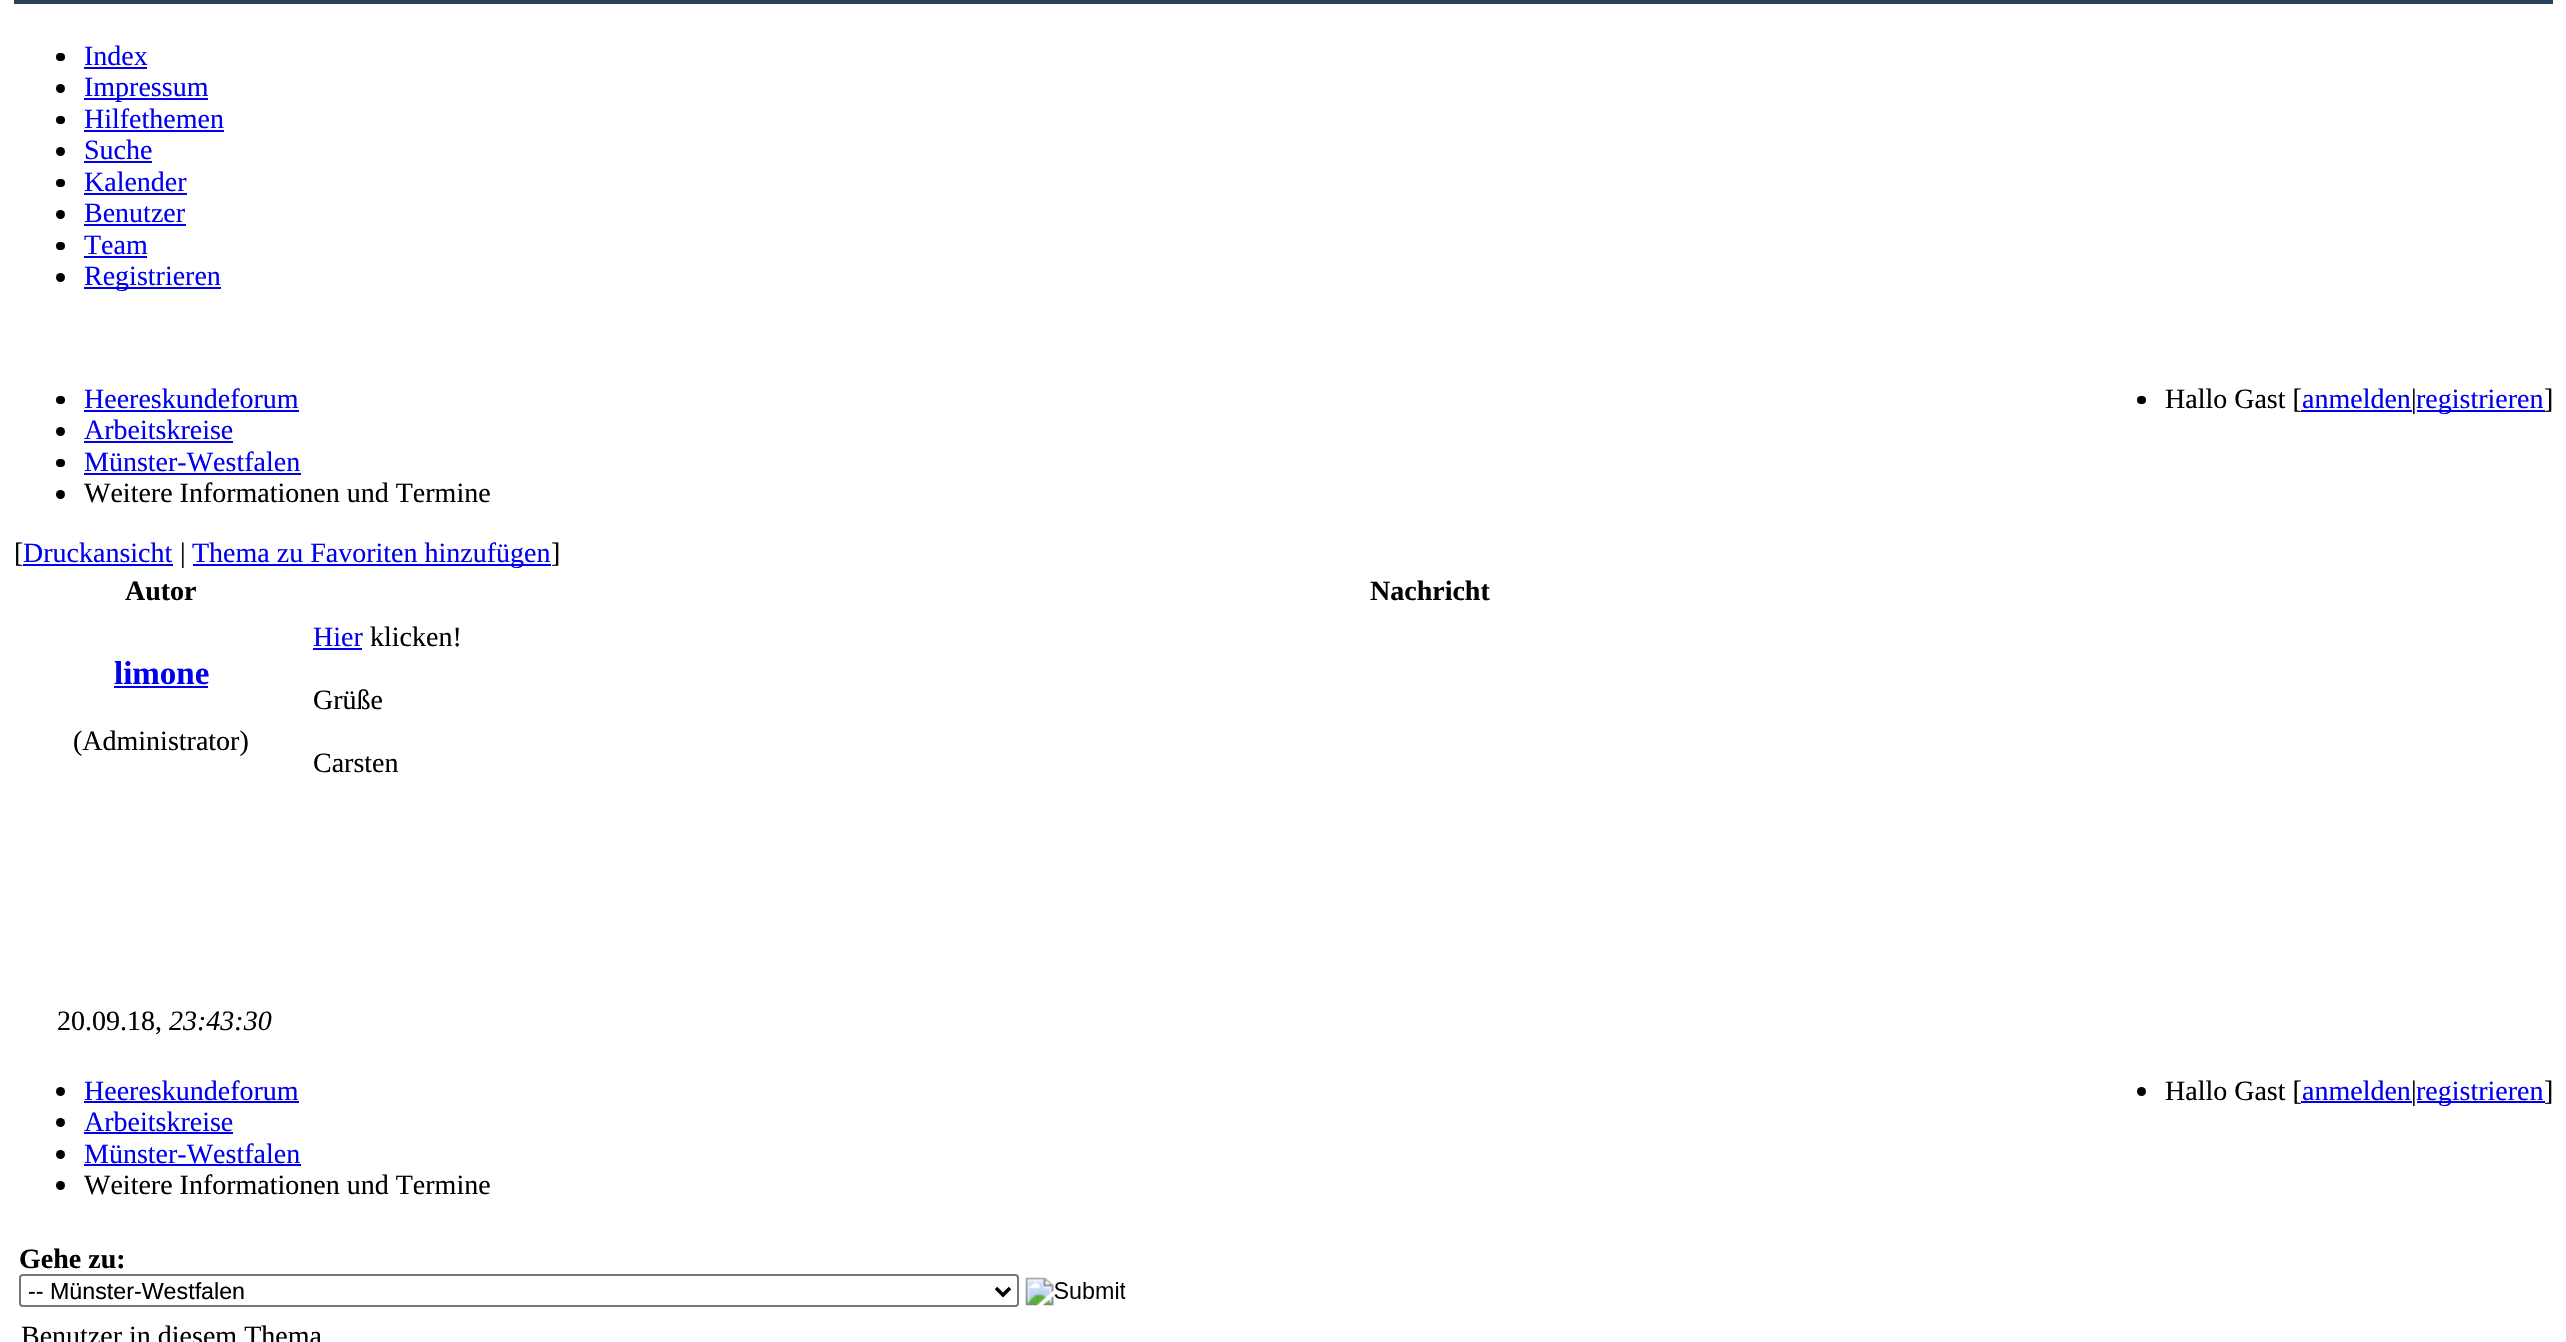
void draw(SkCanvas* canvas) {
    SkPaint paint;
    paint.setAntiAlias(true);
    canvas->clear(0xFFFFFFFF);
    paint.setColor(0xFF2B405D);
    canvas->drawRect(SkRect::MakeXYWH(14, 0, 2539, 4), paint);
    paint.setColor(0xFF000000);
    canvas->drawRoundRect(SkRect::MakeXYWH(56, 53, 9, 8), 4, 4, paint);
    SkFont font1(fontMgr->matchFamilyStyle("Liberation Serif", SkFontStyle::Normal()), 28);
    font1.setSubpixel(true);
    paint.setColor(0xFF0000EE);
    canvas->drawString("Index", 84, 65, font1, paint);
    canvas->drawRect(SkRect::MakeXYWH(84, 67, 63, 2), paint);
    paint.setColor(0xFF000000);
    canvas->drawCircle(60.5f, 88.5f, 4.5f, paint);
    paint.setColor(0xFF0000EE);
    canvas->drawRect(SkRect::MakeXYWH(84, 98, 124, 2), paint);
    canvas->drawString("Impressum", 84, 96, font1, paint);
    paint.setColor(0xFF000000);
    canvas->drawRoundRect(SkRect::MakeXYWH(56, 116, 9, 8), 4, 4, paint);
    paint.setColor(0xFF0000EE);
    canvas->drawString("Hilfethemen", 84, 128, font1, paint);
    canvas->drawRect(SkRect::MakeXYWH(84, 130, 140, 2), paint);
    paint.setColor(0xFF000000);
    canvas->drawCircle(60.5f, 151.5f, 4.5f, paint);
    paint.setColor(0xFF0000EE);
    canvas->drawString("Suche", 84, 159, font1, paint);
    canvas->drawRect(SkRect::MakeXYWH(84, 161, 68, 2), paint);
    paint.setColor(0xFF000000);
    canvas->drawRoundRect(SkRect::MakeXYWH(56, 179, 9, 8), 4, 4, paint);
    paint.setColor(0xFF0000EE);
    canvas->drawString("Kalender", 84, 191, font1, paint);
    canvas->drawRect(SkRect::MakeXYWH(84, 193, 103, 2), paint);
    paint.setColor(0xFF000000);
    canvas->drawCircle(60.5f, 214.5f, 4.5f, paint);
    paint.setColor(0xFF0000EE);
    canvas->drawString("Benutzer", 84, 222, font1, paint);
    canvas->drawRect(SkRect::MakeXYWH(84, 224, 102, 2), paint);
    paint.setColor(0xFF000000);
    canvas->drawRoundRect(SkRect::MakeXYWH(56, 242, 9, 8), 4, 4, paint);
    paint.setColor(0xFF0000EE);
    canvas->drawString("Team", 84, 254, font1, paint);
    canvas->drawRect(SkRect::MakeXYWH(84, 256, 63, 2), paint);
    paint.setColor(0xFF000000);
    canvas->drawCircle(60.5f, 277.5f, 4.5f, paint);
    paint.setColor(0xFF0000EE);
    canvas->drawRect(SkRect::MakeXYWH(84, 287, 137, 2), paint);
    canvas->drawString("Registrieren", 84, 285, font1, paint);
    paint.setColor(0xFF000000);
    canvas->drawRoundRect(SkRect::MakeXYWH(56, 396, 9, 8), 4, 4, paint);
    paint.setColor(0xFF0000EE);
    canvas->drawString("Heereskundeforum", 84, 408, font1, paint);
    canvas->drawRect(SkRect::MakeXYWH(84, 410, 215, 2), paint);
    paint.setColor(0xFF000000);
    canvas->drawRoundRect(SkRect::MakeXYWH(2137, 396, 9, 8), 4, 4, paint);
    canvas->drawString("Hallo Gast [", 2165, 408, font1, paint);
    paint.setColor(0xFF0000EE);
    canvas->drawString("anmelden", 2302, 408, font1, paint);
    canvas->drawRect(SkRect::MakeXYWH(2301, 410, 111, 2), paint);
    paint.setColor(0xFF000000);
    canvas->drawString("|", 2411, 408, font1, paint);
    paint.setColor(0xFF0000EE);
    canvas->drawRect(SkRect::MakeXYWH(2417, 410, 128, 2), paint);
    canvas->drawString("registrieren", 2416, 408, font1, paint);
    paint.setColor(0xFF000000);
    canvas->drawString("]", 2544, 408, font1, paint);
    canvas->drawCircle(60.5f, 431.5f, 4.5f, paint);
    paint.setColor(0xFF0000EE);
    canvas->drawString("Arbeitskreise", 84, 439, font1, paint);
    canvas->drawRect(SkRect::MakeXYWH(84, 441, 149, 2), paint);
    paint.setColor(0xFF000000);
    canvas->drawRoundRect(SkRect::MakeXYWH(56, 459, 9, 8), 4, 4, paint);
    paint.setColor(0xFF0000EE);
    canvas->drawString("Münster-Westfalen", 84, 471, font1, paint);
    canvas->drawRect(SkRect::MakeXYWH(84, 473, 217, 2), paint);
    paint.setColor(0xFF000000);
    canvas->drawCircle(60.5f, 494.5f, 4.5f, paint);
    canvas->drawString("Weitere Informationen und Termine", 84, 502, font1, paint);
    canvas->drawString("[", 14, 562, font1, paint);
    paint.setColor(0xFF0000EE);
    canvas->drawString("Druckansicht", 23, 562, font1, paint);
    canvas->drawRect(SkRect::MakeXYWH(23, 564, 150, 2), paint);
    paint.setColor(0xFF000000);
    canvas->drawString("|", 180, 562, font1, paint);
    paint.setColor(0xFF0000EE);
    canvas->drawRect(SkRect::MakeXYWH(193, 564, 358, 2), paint);
    canvas->drawString("Thema zu Favoriten hinzufügen", 192, 562, font1, paint);
    paint.setColor(0xFF000000);
    canvas->drawString("]", 551, 562, font1, paint);
    SkFont font2(fontMgr->matchFamilyStyle("Liberation Serif", SkFontStyle::Bold()), 28);
    font2.setSubpixel(true);
    canvas->drawString("Autor", 125, 600, font2, paint);
    canvas->drawString("Nachricht", 1370, 600, font2, paint);
    SkFont font3(fontMgr->matchFamilyStyle("Liberation Serif", SkFontStyle::Bold()), 33);
    font3.setSubpixel(true);
    paint.setColor(0xFF0000EE);
    canvas->drawString("limone", 114, 684, font3, paint);
    canvas->drawRect(SkRect::MakeXYWH(114, 686, 94, 2), paint);
    paint.setColor(0xFF000000);
    canvas->drawString("(Administrator)", 73, 750, font1, paint);
    paint.setColor(0xFF0000EE);
    canvas->drawString("Hier", 313, 646, font1, paint);
    canvas->drawRect(SkRect::MakeXYWH(313, 648, 49, 2), paint);
    paint.setColor(0xFF000000);
    canvas->drawString("klicken!", 370, 646, font1, paint);
    canvas->drawString("Grüße", 313, 709, font1, paint);
    canvas->drawString("Carsten", 313, 772, font1, paint);
    canvas->drawString("20.09.18,", 57, 1030, font1, paint);
    SkFont font4(fontMgr->matchFamilyStyle("Liberation Serif", SkFontStyle::Italic()), 28);
    font4.setSubpixel(true);
    canvas->drawString("23:43:30", 169, 1030, font4, paint);
    canvas->drawCircle(60.5f, 1091.5f, 4.5f, paint);
    paint.setColor(0xFF0000EE);
    canvas->drawString("Heereskundeforum", 84, 1100, font1, paint);
    canvas->drawRect(SkRect::MakeXYWH(84, 1101, 215, 2), paint);
    paint.setColor(0xFF000000);
    canvas->drawCircle(2141.5f, 1091.5f, 4.5f, paint);
    canvas->drawString("Hallo Gast [", 2165, 1100, font1, paint);
    paint.setColor(0xFF0000EE);
    canvas->drawString("anmelden", 2302, 1100, font1, paint);
    canvas->drawRect(SkRect::MakeXYWH(2301, 1101, 111, 2), paint);
    paint.setColor(0xFF000000);
    canvas->drawString("|", 2411, 1100, font1, paint);
    paint.setColor(0xFF0000EE);
    canvas->drawRect(SkRect::MakeXYWH(2417, 1101, 128, 2), paint);
    canvas->drawString("registrieren", 2416, 1100, font1, paint);
    paint.setColor(0xFF000000);
    canvas->drawString("]", 2544, 1100, font1, paint);
    canvas->drawCircle(60.5f, 1122.5f, 4.5f, paint);
    paint.setColor(0xFF0000EE);
    canvas->drawString("Arbeitskreise", 84, 1131, font1, paint);
    canvas->drawRect(SkRect::MakeXYWH(84, 1132, 149, 2), paint);
    paint.setColor(0xFF000000);
    canvas->drawCircle(60.5f, 1154.5f, 4.5f, paint);
    paint.setColor(0xFF0000EE);
    canvas->drawString("Münster-Westfalen", 84, 1163, font1, paint);
    canvas->drawRect(SkRect::MakeXYWH(84, 1164, 217, 2), paint);
    paint.setColor(0xFF000000);
    canvas->drawCircle(60.5f, 1185.5f, 4.5f, paint);
    canvas->drawString("Weitere Informationen und Termine", 84, 1194, font1, paint);
    canvas->drawString("Gehe zu:", 19, 1268, font2, paint);
    paint.setStyle(SkPaint::kStroke_Style);
    paint.setStrokeWidth(2);
    paint.setColor(0xFF767676);
    canvas->drawRoundRect(SkRect::MakeXYWH(20, 1275, 998, 31), 3, 3, paint);
    paint.setStrokeWidth(3.5f);
    paint.setColor(0xFF000000);
    canvas->drawPath(SkPathBuilder().moveTo(996, 1288).lineTo(1003, 1295).lineTo(1010, 1288).detach(), paint);
    SkFont font5(fontMgr->matchFamilyStyle("Liberation Sans", SkFontStyle::Normal()), 23.25f);
    font5.setSubpixel(true);
    paint.setStyle(SkPaint::kFill_Style);
    canvas->drawString("-- Münster-Westfalen", 28, 1299, font5, paint);
    canvas->drawImageRect(SkImages::DeferredFromEncodedData(SkData::MakeFromFileName("img1.png")), SkRect::MakeXYWH(1025, 1277, 101, 29), SkSamplingOptions());
    canvas->drawString("Benutzer in diesem Thema", 21, 1345, font1, paint);
}
